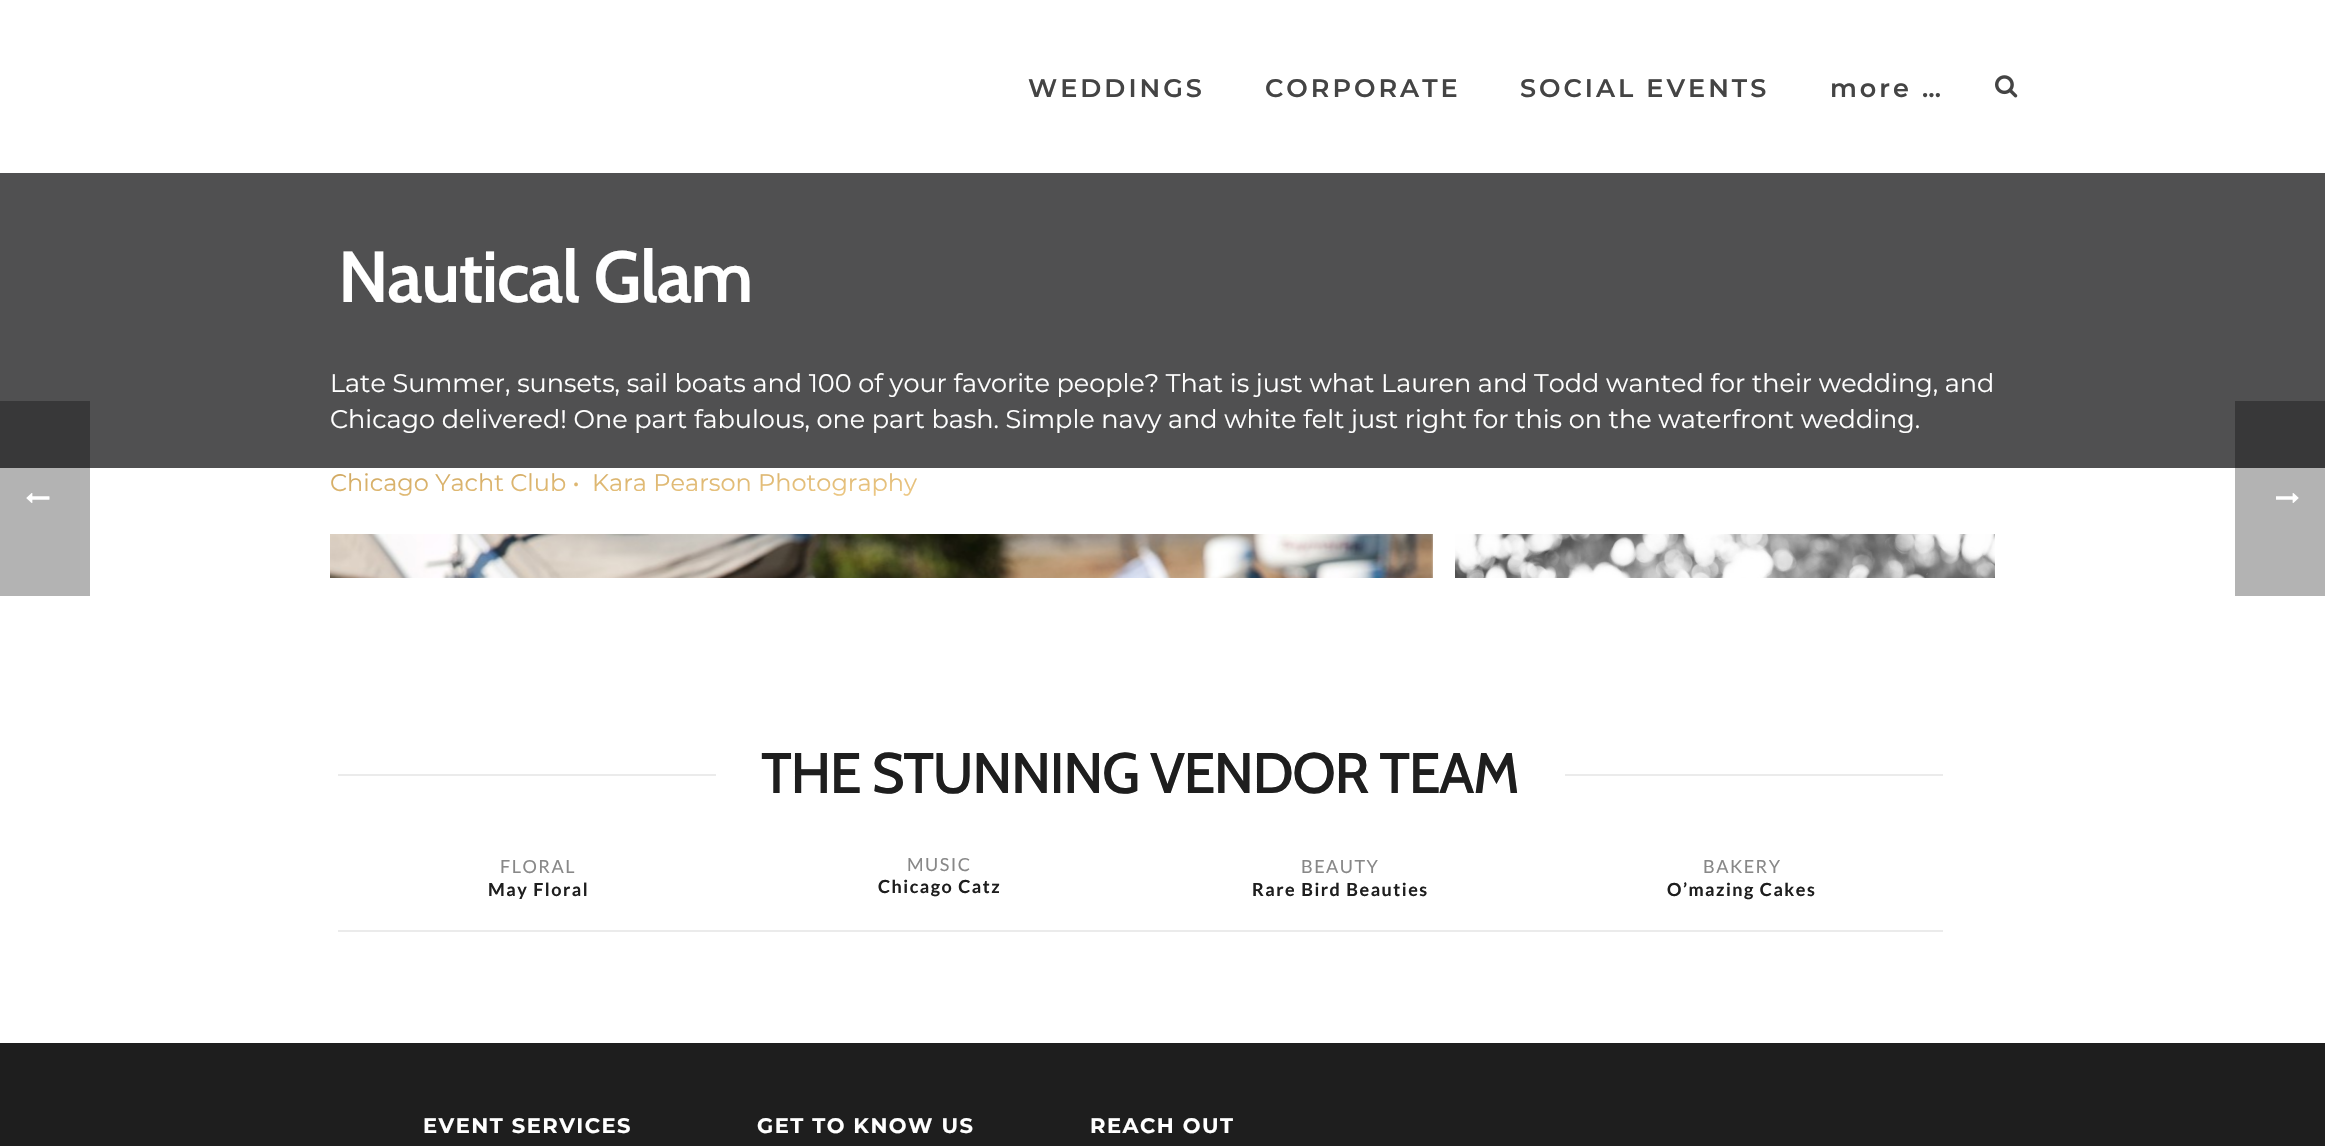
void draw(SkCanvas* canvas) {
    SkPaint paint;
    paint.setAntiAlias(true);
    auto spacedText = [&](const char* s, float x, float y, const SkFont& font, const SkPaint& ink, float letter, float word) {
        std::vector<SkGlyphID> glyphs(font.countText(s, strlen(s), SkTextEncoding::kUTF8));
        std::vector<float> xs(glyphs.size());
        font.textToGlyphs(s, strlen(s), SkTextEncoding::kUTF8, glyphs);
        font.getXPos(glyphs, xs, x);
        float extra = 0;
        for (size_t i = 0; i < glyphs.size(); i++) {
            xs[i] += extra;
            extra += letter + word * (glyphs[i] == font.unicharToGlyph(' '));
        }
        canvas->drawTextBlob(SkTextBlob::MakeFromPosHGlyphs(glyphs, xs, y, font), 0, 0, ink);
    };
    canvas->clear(0xFFFFFFFF);
    paint.setColor(0xFFB3B3B3);
    canvas->drawRect(SkRect::MakeXYWH(2235, 468, 90, 128), paint);
    canvas->drawRect(SkRect::MakeXYWH(0, 468, 90, 128), paint);
    canvas->drawImageRect(SkImages::DeferredFromEncodedData(SkData::MakeFromFileName("img1.png")), SkRect::MakeXYWH(26, 493, 24, 10), SkSamplingOptions());
    SkFont font1(fontMgr->matchFamilyStyle("Montserrat", SkFontStyle(600, SkFontStyle::kNormal_Width, SkFontStyle::kUpright_Slant)), 25.5f);
    font1.setSubpixel(true);
    paint.setColor(0xFF444444);
    spacedText("WEDDINGS", 1028, 97, font1, paint, 3, 0);
    spacedText("CORPORATE", 1265, 97, font1, paint, 3, 0);
    spacedText("SOCIAL EVENTS", 1520, 97, font1, paint, 3, 0);
    spacedText("more …", 1830, 97, font1, paint, 3, 0);
    canvas->drawImageRect(SkImages::DeferredFromEncodedData(SkData::MakeFromFileName("img2.png")), SkRect::MakeXYWH(1995, 75, 23, 23), SkSamplingOptions());
    paint.setColor(0xFF505051);
    canvas->drawRect(SkRect::MakeXYWH(0, 173, 2325, 295), paint);
    SkFont font2(fontMgr->matchFamilyStyle("Cabin", SkFontStyle(600, SkFontStyle::kNormal_Width, SkFontStyle::kUpright_Slant)), 72);
    font2.setSubpixel(true);
    paint.setColor(0xFFFFFFFF);
    spacedText("Nautical Glam", 338, 302, font2, paint, -1.5f, 0);
    paint.setColor(0xFF383839);
    canvas->drawRect(SkRect::MakeXYWH(2235, 401, 90, 67), paint);
    canvas->drawRect(SkRect::MakeXYWH(0, 401, 90, 67), paint);
    SkFont font3(fontMgr->matchFamilyStyle("Montserrat", SkFontStyle::Normal()), 25.5f);
    font3.setSubpixel(true);
    paint.setColor(0xFFFFFFFF);
    canvas->drawString("Late Summer, sunsets, sail boats and 100 of your favorite people? That is just what Lauren and Todd wanted for their wedding, and", 330, 392, font3, paint);
    canvas->drawString("Chicago delivered! One part fabulous, one part bash. Simple navy and white felt just right for this on the waterfront wedding.", 330, 428, font3, paint);
    SkFont font4(fontMgr->matchFamilyStyle("Montserrat", SkFontStyle::Normal()), 24);
    font4.setSubpixel(true);
    {
        const SkColor colors[] = {0xFFCDA45B, 0xFFF1CD8A};
        const float stops[] = {0, 1};
        const SkPoint ends[] = {{622, 453}, {625, 515}};
        paint.setShader(SkGradientShader::MakeLinear(ends, colors, stops, 2, SkTileMode::kClamp));
        paint.setAlpha(255);
    }
    canvas->drawString("Chicago Yacht Club •", 330, 491, font4, paint);
    canvas->drawString("Kara Pearson Photography", 592, 491, font4, paint);
    canvas->drawImageRect(SkImages::DeferredFromEncodedData(SkData::MakeFromFileName("img3.png")), SkRect::MakeXYWH(330, 534, 1103, 44), SkSamplingOptions());
    canvas->drawImageRect(SkImages::DeferredFromEncodedData(SkData::MakeFromFileName("img4.png")), SkRect::MakeXYWH(1455, 534, 540, 44), SkSamplingOptions());
    paint.setShader(nullptr);
    paint.setColor(0xFFEBEBEB);
    canvas->drawRect(SkRect::MakeXYWH(338, 774, 378, 2), paint);
    SkFont font5(fontMgr->matchFamilyStyle("Cabin", SkFontStyle(500, SkFontStyle::kNormal_Width, SkFontStyle::kUpright_Slant)), 57);
    font5.setSubpixel(true);
    paint.setColor(0xFF1E1E1E);
    spacedText("THE STUNNING VENDOR TEAM", 761, 793, font5, paint, -1.5f, 0);
    paint.setColor(0xFFEBEBEB);
    canvas->drawRect(SkRect::MakeXYWH(1565, 774, 378, 2), paint);
    SkFont font6(fontMgr->matchFamilyStyle("Lato", SkFontStyle::Normal()), 18);
    font6.setSubpixel(true);
    paint.setColor(0xFF888888);
    spacedText("FLORAL", 500, 873, font6, paint, 1.5f, 0);
    SkFont font7(fontMgr->matchFamilyStyle("Lato", SkFontStyle::Bold()), 18);
    font7.setSubpixel(true);
    paint.setColor(0xFF1E1E1E);
    spacedText("May Floral", 488, 896, font7, paint, 1.5f, 0);
    paint.setColor(0xFF888888);
    spacedText("MUSIC", 907, 871, font6, paint, 1.5f, 0);
    paint.setColor(0xFF1E1E1E);
    spacedText("Chicago Catz", 878, 893, font7, paint, 1.5f, 0);
    paint.setColor(0xFF888888);
    spacedText("BEAUTY", 1301, 873, font6, paint, 1.5f, 0);
    paint.setColor(0xFF1E1E1E);
    spacedText("Rare Bird Beauties", 1252, 896, font7, paint, 1.5f, 0);
    paint.setColor(0xFF888888);
    spacedText("BAKERY", 1703, 873, font6, paint, 1.5f, 0);
    paint.setColor(0xFF1E1E1E);
    spacedText("O’mazing Cakes", 1667, 896, font7, paint, 1.5f, 0);
    paint.setColor(0xFFEBEBEB);
    canvas->drawRect(SkRect::MakeXYWH(338, 930, 1605, 2), paint);
    paint.setColor(0xFF1E1E1E);
    canvas->drawRect(SkRect::MakeXYWH(0, 1043, 2325, 103), paint);
    SkFont font8(fontMgr->matchFamilyStyle("Montserrat", SkFontStyle::Bold()), 21);
    font8.setSubpixel(true);
    paint.setColor(0xFFFFFFFF);
    spacedText("EVENT SERVICES", 423, 1133, font8, paint, 1.5f, 0);
    spacedText("GET TO KNOW US", 757, 1133, font8, paint, 1.5f, 0);
    spacedText("REACH OUT", 1090, 1133, font8, paint, 1.5f, 0);
    canvas->drawImageRect(SkImages::DeferredFromEncodedData(SkData::MakeFromFileName("img5.png")), SkRect::MakeXYWH(2276, 493, 23, 10), SkSamplingOptions());
}
